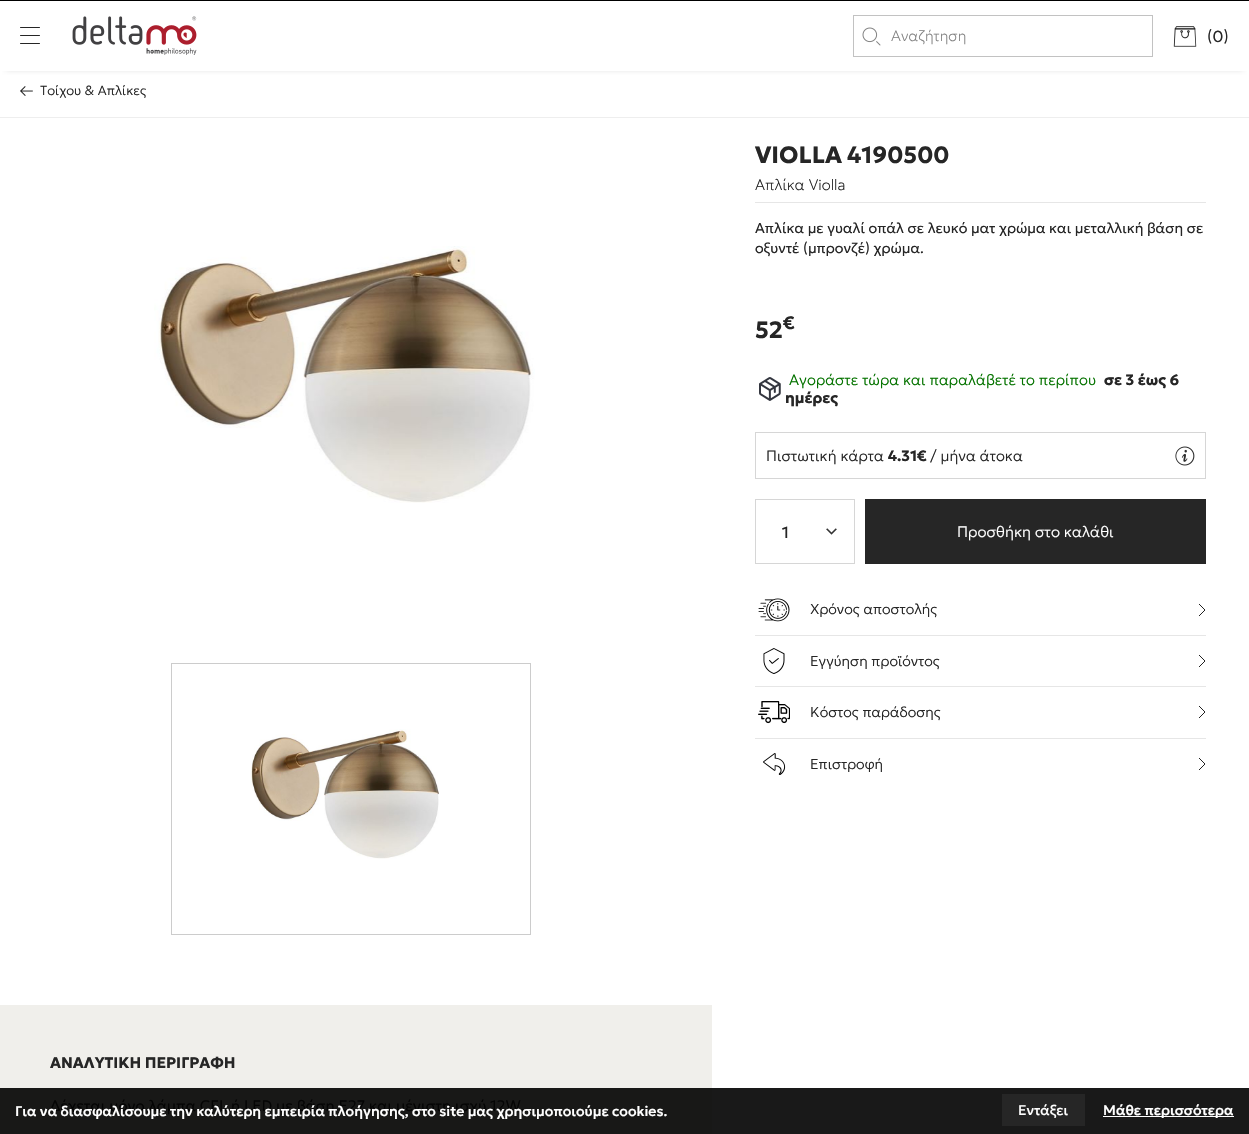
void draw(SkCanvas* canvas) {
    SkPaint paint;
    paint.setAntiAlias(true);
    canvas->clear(0xFFFFFFFF);
    paint.setColor(0xFF191919);
    canvas->drawRect(SkRect::MakeXYWH(712, 1088, 537, 46), paint);
    paint.setColor(0xFF000000);
    canvas->drawRect(SkRect::MakeXYWH(0, 0, 1249, 1), paint);
    canvas->save();
    canvas->clipRect(SkRect::MakeXYWH(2, 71, 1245, 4));
    paint.setColor(0xFFCCCCCC);
    paint.setMaskFilter(SkMaskFilter::MakeBlur(kNormal_SkBlurStyle, 3));
    canvas->drawRect(SkRect::MakeXYWH(6, 11, 1237, 58), paint);
    paint.setMaskFilter(nullptr);
    canvas->restore();
    paint.setColor(0xFF262626);
    canvas->drawRoundRect(SkRect::MakeXYWH(20, 27, 20, 1), 0.5f, 0.5f, paint);
    canvas->drawRoundRect(SkRect::MakeXYWH(20, 35, 20, 1), 0.5f, 0.5f, paint);
    canvas->drawRoundRect(SkRect::MakeXYWH(20, 43, 20, 1), 0.5f, 0.5f, paint);
    canvas->drawImageRect(SkImages::DeferredFromEncodedData(SkData::MakeFromFileName("img1.png")), SkRect::MakeXYWH(72, 16, 125, 39), SkSamplingOptions());
    paint.setStyle(SkPaint::kStroke_Style);
    paint.setStrokeWidth(1);
    paint.setColor(0xFFC2C2C2);
    canvas->drawRect(SkRect::MakeXYWH(853.5f, 15.5f, 299, 41), paint);
    canvas->drawImageRect(SkImages::DeferredFromEncodedData(SkData::MakeFromFileName("img2.png")), SkRect::MakeXYWH(862, 27, 19, 19), SkSamplingOptions());
    SkFont font1(fontMgr->matchFamilyStyle("Geologica", SkFontStyle(100, SkFontStyle::kNormal_Width, SkFontStyle::kUpright_Slant)), 15);
    font1.setSubpixel(true);
    paint.setStyle(SkPaint::kFill_Style);
    paint.setColor(0xFF828282);
    canvas->drawString("Αναζήτηση", 891, 41, font1, paint);
    canvas->drawImageRect(SkImages::DeferredFromEncodedData(SkData::MakeFromFileName("img3.png")), SkRect::MakeXYWH(1173, 26, 24, 21), SkSamplingOptions());
    SkFont font2(fontMgr->matchFamilyStyle("Geologica", SkFontStyle(300, SkFontStyle::kNormal_Width, SkFontStyle::kUpright_Slant)), 16);
    font2.setSubpixel(true);
    paint.setColor(0xFF262626);
    canvas->drawString("(0)", 1207, 42, font2, paint);
    canvas->drawImageRect(SkImages::DeferredFromEncodedData(SkData::MakeFromFileName("img4.png")), SkRect::MakeXYWH(20, 86, 13, 10), SkSamplingOptions());
    SkFont font3(fontMgr->matchFamilyStyle("Geologica", SkFontStyle(200, SkFontStyle::kNormal_Width, SkFontStyle::kUpright_Slant)), 13.25f);
    font3.setSubpixel(true);
    canvas->drawString("Τοίχου & Απλίκες", 40, 95, font3, paint);
    paint.setColor(0xFFEEEEEE);
    canvas->drawRect(SkRect::MakeXYWH(0, 117, 1249, 1), paint);
    paint.setColor(0xFFE6E6E6);
    canvas->drawRect(SkRect::MakeXYWH(755, 202, 451, 1), paint);
    SkFont font4(fontMgr->matchFamilyStyle("Geologica", SkFontStyle::Bold()), 23.5f);
    font4.setSubpixel(true);
    paint.setColor(0xFF262626);
    canvas->drawString("VIOLLA 4190500", 755, 163, font4, paint);
    SkFont font5(fontMgr->matchFamilyStyle("Geologica", SkFontStyle(100, SkFontStyle::kNormal_Width, SkFontStyle::kUpright_Slant)), 15.2f);
    font5.setSubpixel(true);
    canvas->drawString("Απλίκα Violla", 755, 190, font5, paint);
    SkFont font6(fontMgr->matchFamilyStyle("Geologica", SkFontStyle(300, SkFontStyle::kNormal_Width, SkFontStyle::kUpright_Slant)), 14.4f);
    font6.setSubpixel(true);
    canvas->drawString("Απλίκα με γυαλί οπάλ σε λευκό ματ χρώμα και μεταλλική βάση σε", 755, 233, font6, paint);
    canvas->drawString("οξυντέ (μπρονζέ) χρώμα.", 755, 253, font6, paint);
    canvas->drawString("52", 755, 338, font4, paint);
    SkFont font7(fontMgr->matchFamilyStyle("Geologica", SkFontStyle::Bold()), 18);
    font7.setSubpixel(true);
    canvas->drawString("€", 783, 329, font7, paint);
    canvas->drawImageRect(SkImages::DeferredFromEncodedData(SkData::MakeFromFileName("img5.png")), SkRect::MakeXYWH(759, 377, 22, 24), SkSamplingOptions());
    SkFont font8(fontMgr->matchFamilyStyle("Geologica", SkFontStyle(200, SkFontStyle::kNormal_Width, SkFontStyle::kUpright_Slant)), 15);
    font8.setSubpixel(true);
    paint.setColor(0xFF057300);
    canvas->drawString("Αγοράστε τώρα και παραλάβετέ το περίπου", 789, 385, font8, paint);
    SkFont font9(fontMgr->matchFamilyStyle("Geologica", SkFontStyle::Bold()), 15);
    font9.setSubpixel(true);
    paint.setColor(0xFF262626);
    canvas->drawString("σε 3 έως 6", 1104, 385, font9, paint);
    canvas->drawString("ημέρες", 785, 403, font9, paint);
    canvas->drawImageRect(SkImages::DeferredFromEncodedData(SkData::MakeFromFileName("img6.png")), SkRect::MakeXYWH(1175, 446, 20, 20), SkSamplingOptions());
    paint.setStyle(SkPaint::kStroke_Style);
    paint.setColor(0xFFD6D6D6);
    canvas->drawRect(SkRect::MakeXYWH(755.5f, 432.5f, 450, 46), paint);
    paint.setStyle(SkPaint::kFill_Style);
    paint.setColor(0xFF262626);
    canvas->drawString("Πιστωτική κάρτα", 766, 461, font8, paint);
    canvas->drawString("4.31€", 888, 461, font9, paint);
    canvas->drawString("/ μήνα άτοκα", 930, 461, font8, paint);
    canvas->drawImageRect(SkImages::DeferredFromEncodedData(SkData::MakeFromFileName("img7.png")), SkRect::MakeXYWH(826, 528, 11, 7), SkSamplingOptions());
    paint.setStyle(SkPaint::kStroke_Style);
    paint.setColor(0xFFD6D6D6);
    canvas->drawRect(SkRect::MakeXYWH(755.5f, 499.5f, 99, 64), paint);
    SkFont font10(fontMgr->matchFamilyStyle("Geologica", SkFontStyle::Normal()), 16);
    font10.setSubpixel(true);
    paint.setStyle(SkPaint::kFill_Style);
    paint.setColor(0xFF262626);
    canvas->drawString("1", 782, 538, font10, paint);
    canvas->drawRect(SkRect::MakeXYWH(865, 499, 341, 65), paint);
    SkFont font11(fontMgr->matchFamilyStyle("Geologica", SkFontStyle(200, SkFontStyle::kNormal_Width, SkFontStyle::kUpright_Slant)), 15.2f);
    font11.setSubpixel(true);
    paint.setColor(0xFFFFFFFF);
    canvas->drawString("Προσθήκη στο καλάθι", 957, 537, font11, paint);
    paint.setColor(0xFFE6E6E6);
    canvas->drawRect(SkRect::MakeXYWH(755, 635, 451, 1), paint);
    canvas->drawImageRect(SkImages::DeferredFromEncodedData(SkData::MakeFromFileName("img8.png")), SkRect::MakeXYWH(758, 598, 32, 24), SkSamplingOptions());
    paint.setStyle(SkPaint::kStroke_Style);
    paint.setColor(0xFF222222);
    canvas->drawPath(SkPathBuilder().moveTo(1199, 604).lineTo(1205, 610).lineTo(1199, 616).detach(), paint);
    SkFont font12(fontMgr->matchFamilyStyle("Geologica", SkFontStyle(200, SkFontStyle::kNormal_Width, SkFontStyle::kUpright_Slant)), 14.4f);
    font12.setSubpixel(true);
    paint.setStyle(SkPaint::kFill_Style);
    paint.setColor(0xFF262626);
    canvas->drawString("Χρόνος αποστολής", 810, 614, font12, paint);
    paint.setColor(0xFFE6E6E6);
    canvas->drawRect(SkRect::MakeXYWH(755, 686, 451, 1), paint);
    canvas->drawImageRect(SkImages::DeferredFromEncodedData(SkData::MakeFromFileName("img9.png")), SkRect::MakeXYWH(763, 648, 22, 26), SkSamplingOptions());
    paint.setStyle(SkPaint::kStroke_Style);
    paint.setColor(0xFF222222);
    canvas->drawPath(SkPathBuilder().moveTo(1199, 655).lineTo(1205, 661).lineTo(1199, 667).detach(), paint);
    paint.setStyle(SkPaint::kFill_Style);
    paint.setColor(0xFF262626);
    canvas->drawString("Εγγύηση προϊόντος", 810, 666, font12, paint);
    paint.setColor(0xFFE6E6E6);
    canvas->drawRect(SkRect::MakeXYWH(755, 738, 451, 1), paint);
    canvas->drawImageRect(SkImages::DeferredFromEncodedData(SkData::MakeFromFileName("img10.png")), SkRect::MakeXYWH(758, 701, 32, 23), SkSamplingOptions());
    paint.setStyle(SkPaint::kStroke_Style);
    paint.setColor(0xFF222222);
    canvas->drawPath(SkPathBuilder().moveTo(1199, 706).lineTo(1205, 712).lineTo(1199, 718).detach(), paint);
    paint.setStyle(SkPaint::kFill_Style);
    paint.setColor(0xFF262626);
    canvas->drawString("Κόστος παράδοσης", 810, 717, font12, paint);
    canvas->drawImageRect(SkImages::DeferredFromEncodedData(SkData::MakeFromFileName("img11.png")), SkRect::MakeXYWH(763, 753, 23, 22), SkSamplingOptions());
    paint.setStyle(SkPaint::kStroke_Style);
    paint.setColor(0xFF222222);
    canvas->drawPath(SkPathBuilder().moveTo(1199, 758).lineTo(1205, 764).lineTo(1199, 770).detach(), paint);
    paint.setStyle(SkPaint::kFill_Style);
    paint.setColor(0xFF262626);
    canvas->drawString("Επιστροφή", 810, 769, font12, paint);
    canvas->drawImageRect(SkImages::DeferredFromEncodedData(SkData::MakeFromFileName("img12.png")), SkRect::MakeXYWH(154, 246, 381, 257), SkSamplingOptions());
    paint.setStyle(SkPaint::kStroke_Style);
    paint.setColor(0xFFCCCCCC);
    canvas->drawRect(SkRect::MakeXYWH(171.5f, 663.5f, 359, 271), paint);
    canvas->drawImageRect(SkImages::DeferredFromEncodedData(SkData::MakeFromFileName("img13.png")), SkRect::MakeXYWH(250, 729, 189, 130), SkSamplingOptions());
    paint.setStyle(SkPaint::kFill_Style);
    paint.setColor(0xFFF0EFEB);
    canvas->drawRect(SkRect::MakeXYWH(0, 1005, 712, 83), paint);
    paint.setColor(0xFF181817);
    canvas->drawRect(SkRect::MakeXYWH(0, 1088, 712, 46), paint);
    SkFont font13(fontMgr->matchFamilyStyle("Geologica", SkFontStyle::Bold()), 15.2f);
    font13.setSubpixel(true);
    paint.setColor(0xFF262626);
    canvas->drawString("ΑΝΑΛΥΤΙΚΗ ΠΕΡΙΓΡΑΦΗ", 50, 1068, font13, paint);
    SkFont font14(fontMgr->matchFamilyStyle("Geologica", SkFontStyle(300, SkFontStyle::kNormal_Width, SkFontStyle::kUpright_Slant)), 15.2f);
    font14.setSubpixel(true);
    paint.setColor(0xFF040404);
    canvas->drawString("Δέχεται μόνο λάμπα CFL ή LED με βάση E27 και μέγιστη ισχύ 12W.", 50, 1111, font14, paint);
    SkFont font15(fontMgr->matchFamilyStyle("Geologica", SkFontStyle(500, SkFontStyle::kNormal_Width, SkFontStyle::kUpright_Slant)), 14);
    font15.setSubpixel(true);
    paint.setColor(0xFFFFFFFF);
    canvas->drawString("Για να διασφαλίσουμε την καλύτερη εμπειρία πλοήγησης, στο site μας χρησιμοποιούμε cookies.", 15, 1116, font15, paint);
    paint.setColor(0xFF262626);
    canvas->drawRect(SkRect::MakeXYWH(1002, 1094, 83, 32), paint);
    SkFont font16(fontMgr->matchFamilyStyle("Geologica", SkFontStyle::Normal()), 14);
    font16.setSubpixel(true);
    paint.setColor(0xFFFFFFFF);
    canvas->drawString("Εντάξει", 1018, 1115, font16, paint);
    canvas->drawRect(SkRect::MakeXYWH(1103, 1116, 131, 1), paint);
    canvas->drawString("Μάθε περισσότερα", 1103, 1115, font15, paint);
}
